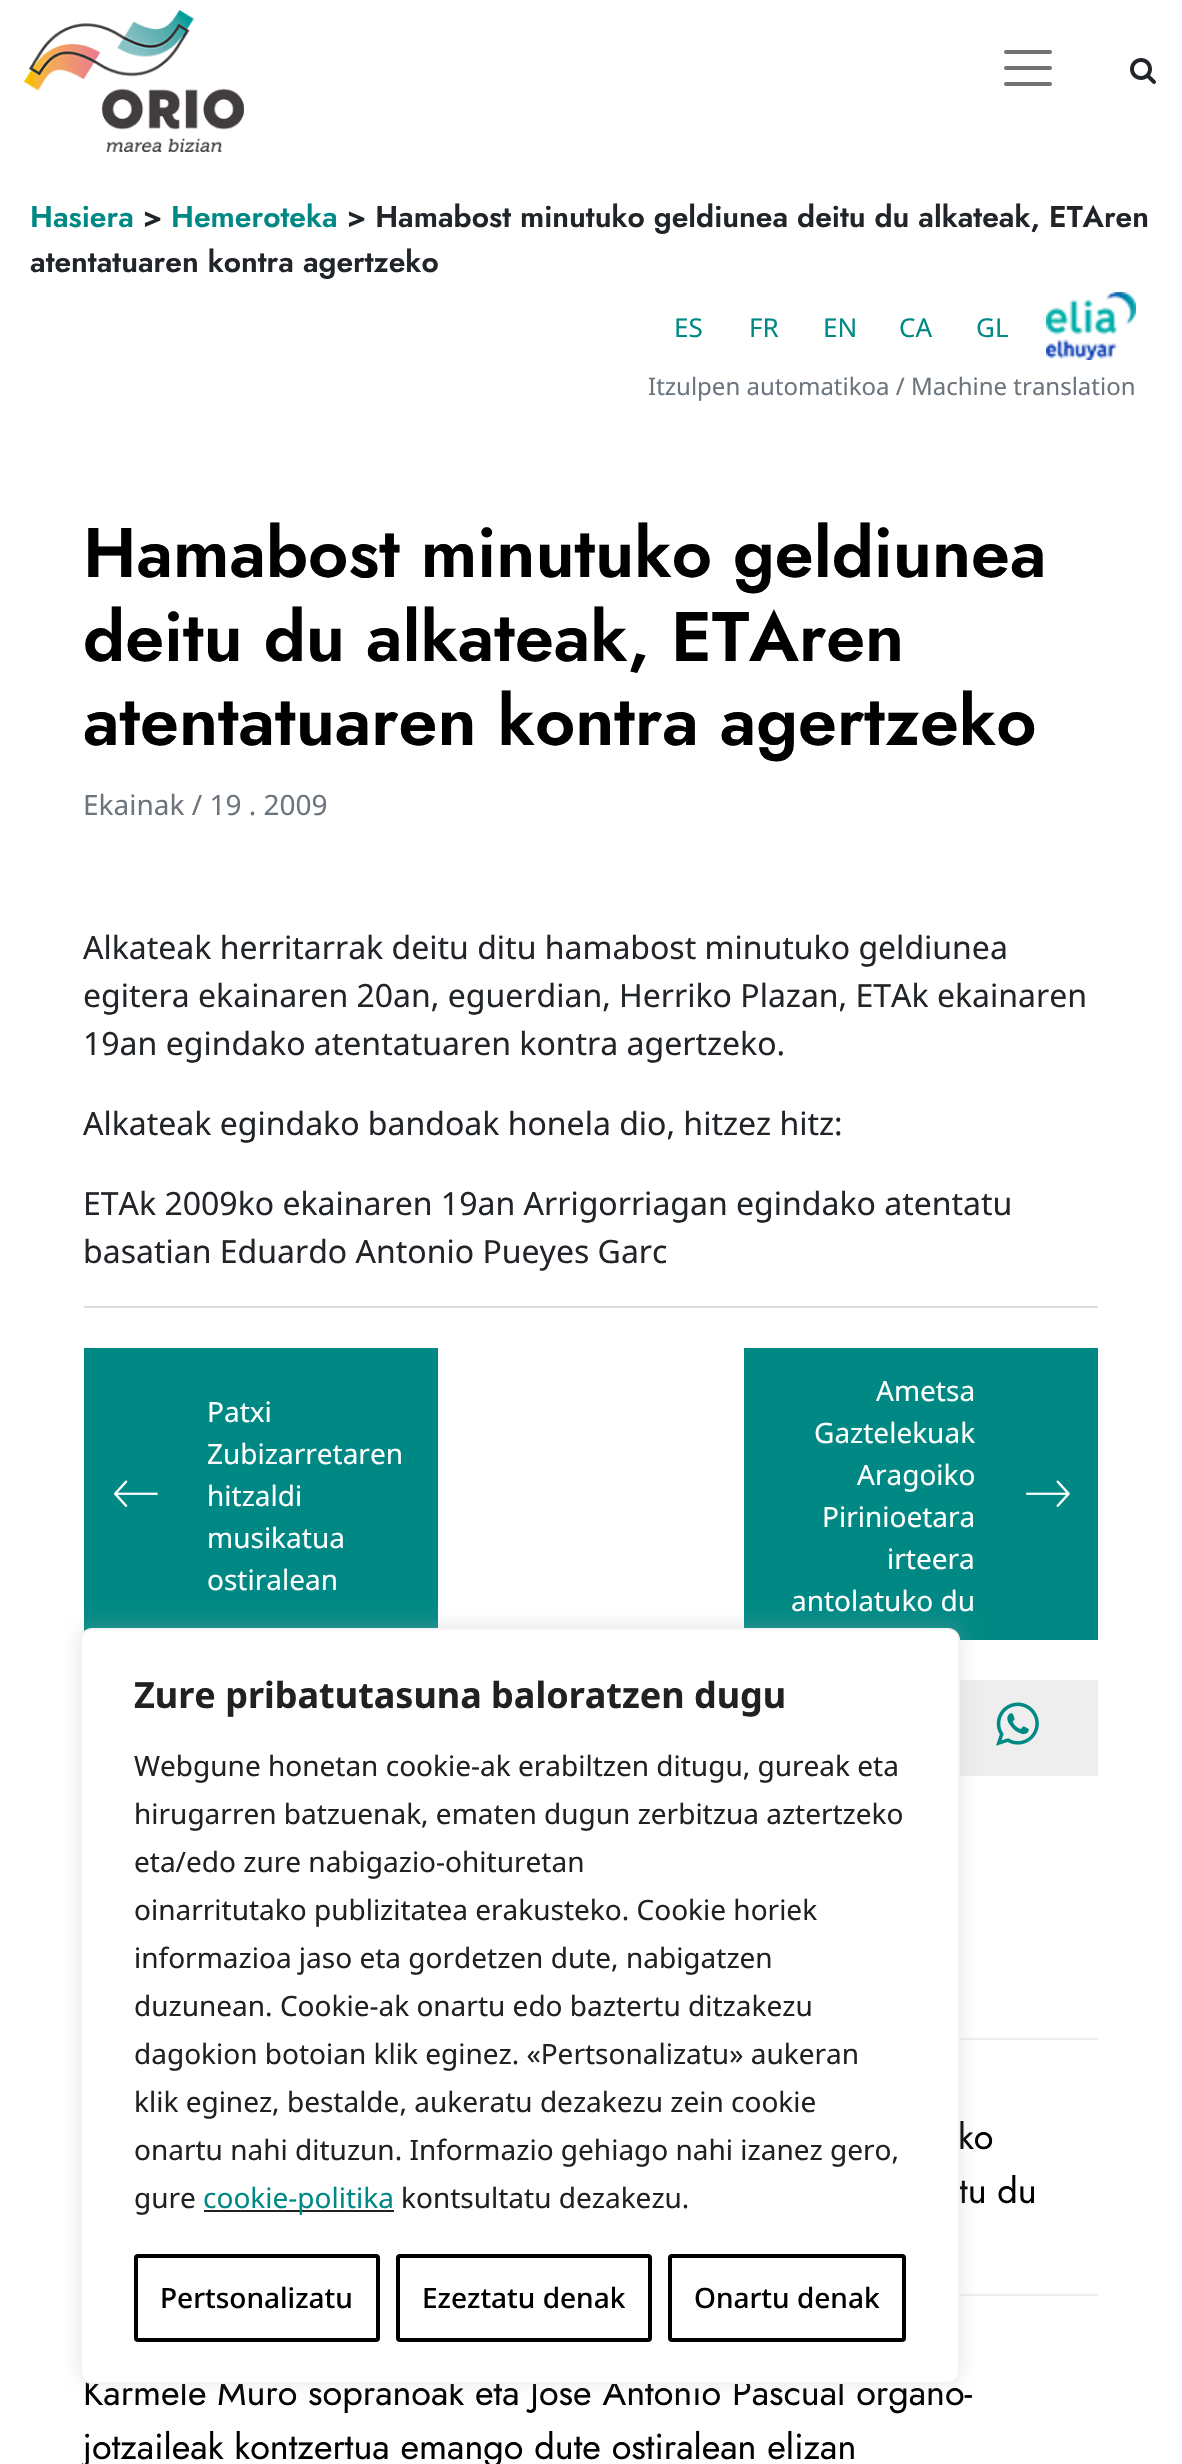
void draw(SkCanvas* canvas) {
    SkPaint paint;
    paint.setAntiAlias(true);
    canvas->clear(0xFFFFFFFF);
    canvas->drawImageRect(SkImages::DeferredFromEncodedData(SkData::MakeFromFileName("img1.png")), SkRect::MakeXYWH(24, 10, 220, 142), SkSamplingOptions());
    paint.setStyle(SkPaint::kStroke_Style);
    paint.setStrokeWidth(4);
    paint.setStrokeCap(SkPaint::kRound_Cap);
    paint.setColor(0xFF737373);
    canvas->drawPath(SkPathBuilder().moveTo(1006, 52).lineTo(1050, 52).moveTo(1006, 68).lineTo(1050, 68).moveTo(1006, 84).lineTo(1050, 84).detach(), paint);
    canvas->drawImageRect(SkImages::DeferredFromEncodedData(SkData::MakeFromFileName("img2.png")), SkRect::MakeXYWH(1130, 58, 26, 26), SkSamplingOptions());
    SkFont font1(fontMgr->matchFamilyStyle("Jost", SkFontStyle(600, SkFontStyle::kNormal_Width, SkFontStyle::kUpright_Slant)), 30);
    font1.setSubpixel(true);
    paint.setStyle(SkPaint::kFill_Style);
    paint.setColor(0xFF008984);
    canvas->drawString("Hasiera", 30, 227, font1, paint);
    paint.setColor(0xFF212529);
    canvas->drawString(">", 143, 227, font1, paint);
    paint.setColor(0xFF008984);
    canvas->drawString("Hemeroteka", 171, 227, font1, paint);
    paint.setColor(0xFF212529);
    canvas->drawString("> Hamabost minutuko geldiunea deitu du alkateak, ETAren", 347, 227, font1, paint);
    canvas->drawString("atentatuaren kontra agertzeko", 30, 272, font1, paint);
    SkFont font2(fontMgr->matchFamilyStyle("Noto Sans", SkFontStyle::Normal()), 26);
    font2.setSubpixel(true);
    paint.setColor(0xFF008984);
    canvas->drawString("ES", 674, 337, font2, paint);
    canvas->drawString("FR", 749, 337, font2, paint);
    canvas->drawString("EN", 823, 337, font2, paint);
    canvas->drawString("CA", 899, 337, font2, paint);
    canvas->drawString("GL", 976, 337, font2, paint);
    canvas->drawImageRect(SkImages::DeferredFromEncodedData(SkData::MakeFromFileName("img3.png")), SkRect::MakeXYWH(1046, 292, 90, 68), SkSamplingOptions());
    SkFont font3(fontMgr->matchFamilyStyle("Noto Sans", SkFontStyle::Normal()), 24);
    font3.setSubpixel(true);
    paint.setColor(0xFF6C757D);
    canvas->drawString("Itzulpen automatikoa / Machine translation", 648, 395, font3, paint);
    SkFont font4(fontMgr->matchFamilyStyle("Jost", SkFontStyle(600, SkFontStyle::kNormal_Width, SkFontStyle::kUpright_Slant)), 70);
    font4.setSubpixel(true);
    paint.setColor(0xFF000000);
    canvas->drawString("Hamabost minutuko geldiunea", 83, 577, font4, paint);
    canvas->drawString("deitu du alkateak, ETAren", 83, 661, font4, paint);
    canvas->drawString("atentatuaren kontra agertzeko", 83, 745, font4, paint);
    SkFont font5(fontMgr->matchFamilyStyle("Noto Sans", SkFontStyle::Normal()), 28);
    font5.setSubpixel(true);
    paint.setColor(0xFF6C757D);
    canvas->drawString("Ekainak / 19 . 2009", 83, 815, font5, paint);
    SkFont font6(fontMgr->matchFamilyStyle("Noto Sans", SkFontStyle::Normal()), 32);
    font6.setSubpixel(true);
    paint.setColor(0xFF212529);
    canvas->drawString("Alkateak herritarrak deitu ditu hamabost minutuko geldiunea", 83, 959, font6, paint);
    canvas->drawString("egitera ekainaren 20an, eguerdian, Herriko Plazan, ETAk ekainaren", 83, 1007, font6, paint);
    canvas->drawString("19an egindako atentatuaren kontra agertzeko.", 83, 1055, font6, paint);
    canvas->drawString("Alkateak egindako bandoak honela dio, hitzez hitz:", 83, 1135, font6, paint);
    canvas->drawString("ETAk 2009ko ekainaren 19an Arrigorriagan egindako atentatu", 83, 1215, font6, paint);
    canvas->drawString("basatian Eduardo Antonio Pueyes Garc", 83, 1263, font6, paint);
    paint.setColor(0xFFDDDDDD);
    canvas->drawRect(SkRect::MakeXYWH(84, 1306, 1014, 2), paint);
    paint.setColor(0xFF008984);
    canvas->drawRect(SkRect::MakeXYWH(84, 1348, 354, 284), paint);
    canvas->drawImageRect(SkImages::DeferredFromEncodedData(SkData::MakeFromFileName("img4.png")), SkRect::MakeXYWH(114, 1480, 44, 27), SkSamplingOptions());
    paint.setColor(0xFFFFFFFF);
    canvas->drawString("Patxi", 207, 1422, font5, paint);
    canvas->drawString("Zubizarretaren", 207, 1464, font5, paint);
    canvas->drawString("hitzaldi", 207, 1506, font5, paint);
    canvas->drawString("musikatua", 207, 1548, font5, paint);
    canvas->drawString("ostiralean", 207, 1590, font5, paint);
    paint.setColor(0xFF008984);
    canvas->drawRect(SkRect::MakeXYWH(744, 1348, 354, 292), paint);
    paint.setColor(0xFFFFFFFF);
    canvas->drawString("Ametsa", 876, 1401, font5, paint);
    canvas->drawString("Gaztelekuak", 814, 1443, font5, paint);
    canvas->drawString("Aragoiko", 857, 1485, font5, paint);
    canvas->drawString("Pirinioetara", 822, 1527, font5, paint);
    canvas->drawString("irteera", 887, 1569, font5, paint);
    canvas->drawString("antolatuko du", 791, 1611, font5, paint);
    canvas->drawImageRect(SkImages::DeferredFromEncodedData(SkData::MakeFromFileName("img5.png")), SkRect::MakeXYWH(1026, 1480, 44, 27), SkSamplingOptions());
    paint.setColor(0xFFEEEEEE);
    canvas->drawRect(SkRect::MakeXYWH(960, 1680, 138, 96), paint);
    canvas->drawImageRect(SkImages::DeferredFromEncodedData(SkData::MakeFromFileName("img6.png")), SkRect::MakeXYWH(996, 1702, 43, 44), SkSamplingOptions());
    canvas->drawRect(SkRect::MakeXYWH(960, 2038, 138, 2), paint);
    canvas->drawRect(SkRect::MakeXYWH(960, 2294, 138, 2), paint);
    SkFont font7(fontMgr->matchFamilyStyle("Jost", SkFontStyle::Normal()), 36);
    font7.setSubpixel(true);
    paint.setColor(0xFF000000);
    canvas->drawString("ko", 958, 2149, font7, paint);
    canvas->drawString("tu du", 959, 2203, font7, paint);
    canvas->drawString("Karmele Muro sopranoak eta Jose Antonio Pascual organo-", 83, 2405, font7, paint);
    canvas->drawString("jotzaileak kontzertua emango dute ostiralean elizan", 83, 2459, font7, paint);
    paint.setColor(0x4DACABAB);
    paint.setMaskFilter(SkMaskFilter::MakeBlur(kNormal_SkBlurStyle, 10));
    canvas->drawRoundRect(SkRect::MakeXYWH(80, 1626, 880, 756), 12, 12, paint);
    paint.setMaskFilter(nullptr);
    paint.setColor(0xFFFFFFFF);
    canvas->drawRoundRect(SkRect::MakeXYWH(81, 1629, 878, 754), 11, 11, paint);
    paint.setStyle(SkPaint::kStroke_Style);
    paint.setStrokeWidth(2);
    paint.setStrokeCap(SkPaint::kButt_Cap);
    paint.setColor(0xFFF4F4F4);
    canvas->drawRoundRect(SkRect::MakeXYWH(81, 1629, 878, 754), 11, 11, paint);
    SkFont font8(fontMgr->matchFamilyStyle("Noto Sans", SkFontStyle::Bold()), 36);
    font8.setSubpixel(true);
    paint.setStyle(SkPaint::kFill_Style);
    paint.setColor(0xFF212121);
    canvas->drawString("Zure pribatutasuna baloratzen dugu", 134, 1708, font8, paint);
    canvas->drawString("Webgune honetan cookie-ak erabiltzen ditugu, gureak eta", 134, 1776, font5, paint);
    canvas->drawString("hirugarren batzuenak, ematen dugun zerbitzua aztertzeko", 134, 1824, font5, paint);
    canvas->drawString("eta/edo zure nabigazio-ohituretan", 134, 1872, font5, paint);
    canvas->drawString("oinarritutako publizitatea erakusteko. Cookie horiek", 134, 1920, font5, paint);
    canvas->drawString("informazioa jaso eta gordetzen dute, nabigatzen", 134, 1968, font5, paint);
    canvas->drawString("duzunean. Cookie-ak onartu edo baztertu ditzakezu", 134, 2016, font5, paint);
    canvas->drawString("dagokion botoian klik eginez. «Pertsonalizatu» aukeran", 134, 2064, font5, paint);
    canvas->drawString("klik eginez, bestalde, aukeratu dezakezu zein cookie", 134, 2112, font5, paint);
    canvas->drawString("onartu nahi dituzun. Informazio gehiago nahi izanez gero,", 134, 2160, font5, paint);
    canvas->drawString("gure", 134, 2208, font5, paint);
    canvas->drawRect(SkRect::MakeXYWH(204, 2210, 190, 2), paint);
    paint.setColor(0xFF008984);
    canvas->drawString("cookie-politika", 203, 2208, font5, paint);
    paint.setColor(0xFF212121);
    canvas->drawString("kontsultatu dezakezu.", 401, 2208, font5, paint);
    paint.setStyle(SkPaint::kStroke_Style);
    paint.setStrokeWidth(4);
    paint.setColor(0xFF000000);
    canvas->drawRoundRect(SkRect::MakeXYWH(136, 2256, 242, 84), 2, 2, paint);
    SkFont font9(fontMgr->matchFamilyStyle("Noto Sans", SkFontStyle(500, SkFontStyle::kNormal_Width, SkFontStyle::kUpright_Slant)), 28);
    font9.setSubpixel(true);
    paint.setStyle(SkPaint::kFill_Style);
    canvas->drawString("Pertsonalizatu", 160, 2308, font9, paint);
    paint.setStyle(SkPaint::kStroke_Style);
    canvas->drawRoundRect(SkRect::MakeXYWH(398, 2256, 252, 84), 2, 2, paint);
    paint.setStyle(SkPaint::kFill_Style);
    canvas->drawString("Ezeztatu denak", 422, 2308, font9, paint);
    paint.setStyle(SkPaint::kStroke_Style);
    canvas->drawRoundRect(SkRect::MakeXYWH(670, 2256, 234, 84), 2, 2, paint);
    paint.setStyle(SkPaint::kFill_Style);
    canvas->drawString("Onartu denak", 694, 2308, font9, paint);
}
